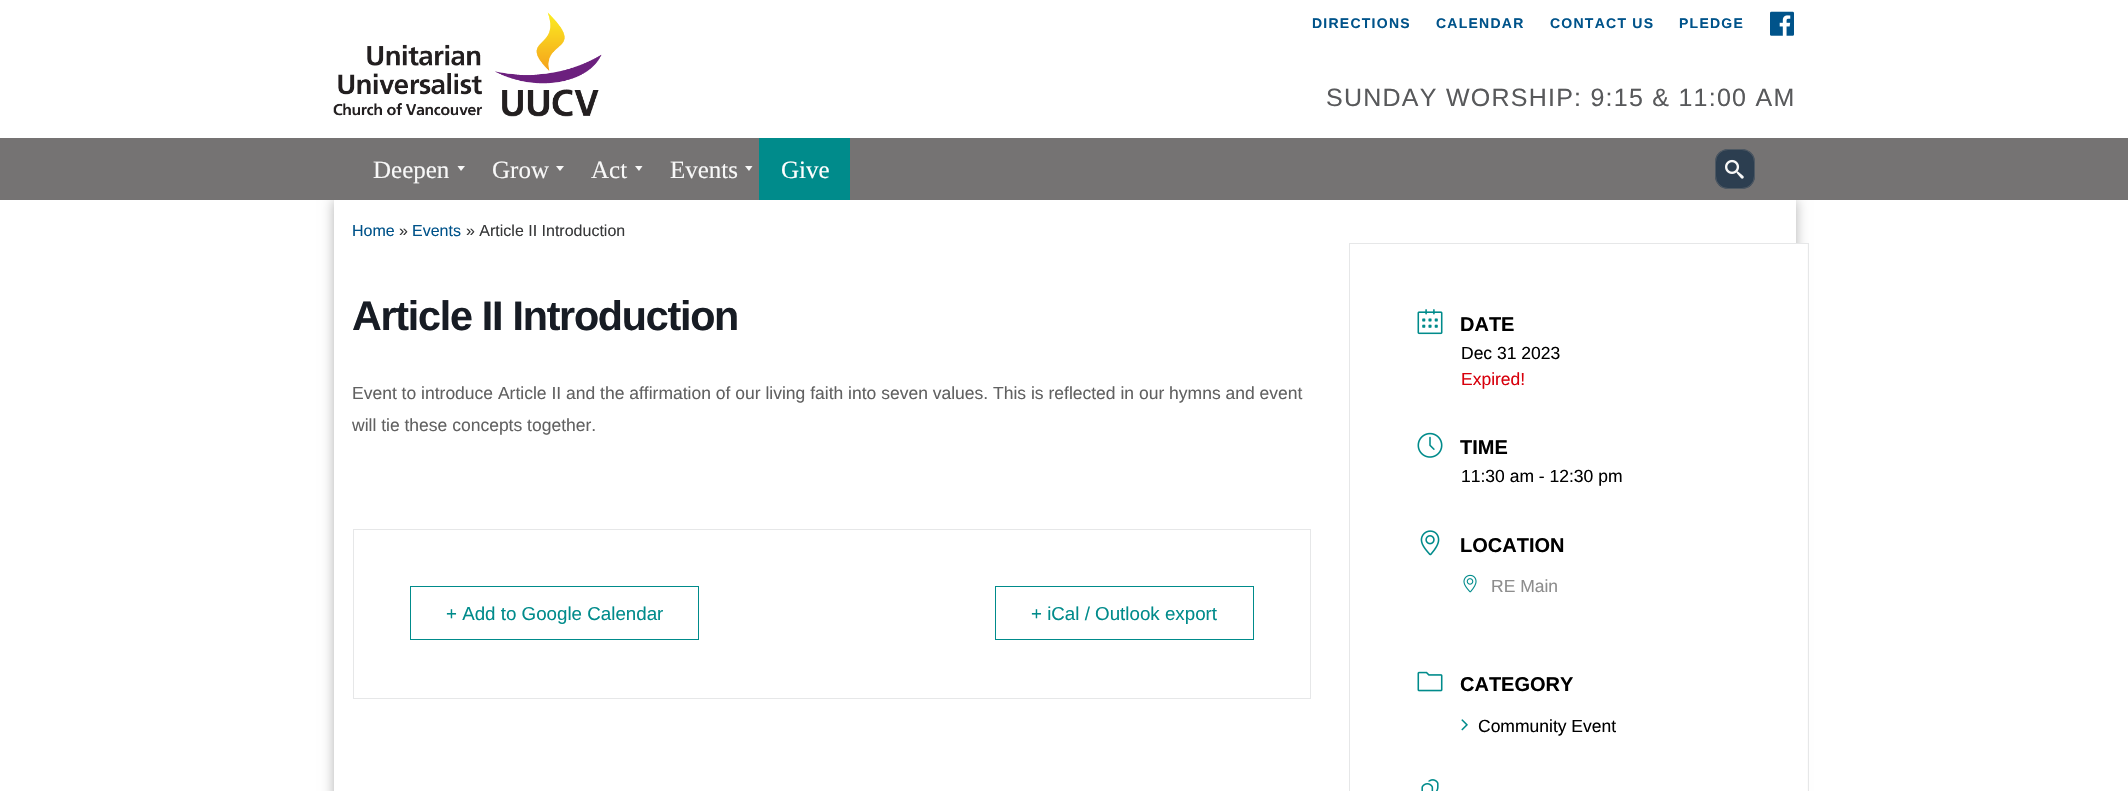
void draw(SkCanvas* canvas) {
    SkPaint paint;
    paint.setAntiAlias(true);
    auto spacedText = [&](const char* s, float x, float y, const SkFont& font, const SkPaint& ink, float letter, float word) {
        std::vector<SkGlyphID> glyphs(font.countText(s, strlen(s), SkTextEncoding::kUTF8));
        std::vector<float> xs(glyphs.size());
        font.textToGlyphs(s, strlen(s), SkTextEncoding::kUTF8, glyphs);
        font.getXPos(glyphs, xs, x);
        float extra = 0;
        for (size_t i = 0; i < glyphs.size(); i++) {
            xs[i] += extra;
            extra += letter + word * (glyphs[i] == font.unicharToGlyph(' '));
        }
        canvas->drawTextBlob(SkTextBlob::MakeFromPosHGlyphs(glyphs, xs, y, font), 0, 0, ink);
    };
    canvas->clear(0xFFFFFFFF);
    canvas->drawImageRect(SkImages::DeferredFromEncodedData(SkData::MakeFromFileName("img1.png")), SkRect::MakeXYWH(333, 12, 269, 105), SkSamplingOptions());
    SkFont font1(fontMgr->matchFamilyStyle("Liberation Sans", SkFontStyle::Bold()), 14);
    font1.setSubpixel(true);
    paint.setColor(0xFF00538A);
    spacedText("DIRECTIONS", 1312, 28, font1, paint, 1.25f, 0);
    spacedText("CALENDAR", 1436, 28, font1, paint, 1.25f, 0);
    spacedText("CONTACT US", 1550, 28, font1, paint, 1.25f, 0);
    spacedText("PLEDGE", 1679, 28, font1, paint, 1.25f, 0);
    canvas->drawImageRect(SkImages::DeferredFromEncodedData(SkData::MakeFromFileName("img2.png")), SkRect::MakeXYWH(1770, 11, 24, 25), SkSamplingOptions());
    SkFont font2(fontMgr->matchFamilyStyle("Liberation Sans", SkFontStyle::Normal()), 25);
    font2.setSubpixel(true);
    paint.setColor(0xFF58595B);
    spacedText("SUNDAY WORSHIP: 9:15 & 11:00 AM", 1326, 106, font2, paint, 1.25f, 0);
    canvas->save();
    canvas->clipPath(SkPathBuilder(SkPathFillType::kEvenOdd).moveTo(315, 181).lineTo(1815, 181).lineTo(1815, 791).lineTo(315, 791).close().moveTo(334, 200).lineTo(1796, 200).lineTo(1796, 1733).lineTo(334, 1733).close().detach(), true);
    paint.setColor(0x4D000000);
    paint.setMaskFilter(SkMaskFilter::MakeBlur(kNormal_SkBlurStyle, 6));
    canvas->drawRect(SkRect::MakeXYWH(334, 200, 1462, 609), paint);
    paint.setMaskFilter(nullptr);
    canvas->restore();
    paint.setColor(0xFF757373);
    canvas->drawRect(SkRect::MakeXYWH(0, 138, 2128, 62), paint);
    SkFont font3(fontMgr->matchFamilyStyle("Liberation Serif", SkFontStyle::Normal()), 25);
    font3.setSubpixel(true);
    paint.setColor(0xFFF8F8F8);
    canvas->drawString("Deepen", 373, 178, font3, paint);
    canvas->drawPath(SkPathBuilder().moveTo(457.5f, 166).lineTo(465, 166).lineTo(461, 171).close().detach(), paint);
    canvas->drawString("Grow", 492, 178, font3, paint);
    canvas->drawPath(SkPathBuilder().moveTo(556, 166).lineTo(564, 166).lineTo(560, 171).close().detach(), paint);
    canvas->drawString("Act", 591, 178, font3, paint);
    canvas->drawPath(SkPathBuilder().moveTo(635, 166).lineTo(642.5f, 166).lineTo(639, 171).close().detach(), paint);
    canvas->drawString("Events", 670, 178, font3, paint);
    canvas->drawPath(SkPathBuilder().moveTo(745, 166).lineTo(752.5f, 166).lineTo(749, 171).close().detach(), paint);
    paint.setColor(0xFF008B8B);
    canvas->drawRect(SkRect::MakeXYWH(759, 138, 91, 62), paint);
    paint.setColor(0xFFFFFFFF);
    canvas->drawString("Give", 781, 178, font3, paint);
    paint.setColor(0xFF2C3E50);
    canvas->drawRoundRect(SkRect::MakeXYWH(1715, 149, 40, 40), 13, 13, paint);
    paint.setStyle(SkPaint::kStroke_Style);
    paint.setStrokeWidth(1);
    paint.setColor(0x66808080);
    canvas->drawRoundRect(SkRect::MakeXYWH(1715.5f, 149.5f, 39, 39), 12.5f, 12.5f, paint);
    canvas->drawImageRect(SkImages::DeferredFromEncodedData(SkData::MakeFromFileName("img3.png")), SkRect::MakeXYWH(1725, 159, 19, 20), SkSamplingOptions());
    SkFont font4(fontMgr->matchFamilyStyle("Liberation Sans", SkFontStyle::Normal()), 16);
    font4.setSubpixel(true);
    paint.setStyle(SkPaint::kFill_Style);
    paint.setColor(0xFF00538A);
    canvas->drawString("Home", 352, 236, font4, paint);
    paint.setColor(0xFF373839);
    canvas->drawString("»", 399, 236, font4, paint);
    paint.setColor(0xFF00538A);
    canvas->drawString("Events", 412, 236, font4, paint);
    paint.setColor(0xFF373839);
    canvas->drawString("» Article II Introduction", 466, 236, font4, paint);
    SkFont font5(fontMgr->matchFamilyStyle("Liberation Sans", SkFontStyle::Bold()), 41.25f);
    font5.setSubpixel(true);
    paint.setColor(0xFF171C24);
    spacedText("Article II Introduction", 352, 330, font5, paint, -1.25f, 0);
    SkFont font6(fontMgr->matchFamilyStyle("Liberation Sans", SkFontStyle::Normal()), 17.5f);
    font6.setSubpixel(true);
    paint.setColor(0xFF616161);
    canvas->drawString("Event to introduce Article II and the affirmation of our living faith into seven values. This is reflected in our hymns and event", 352, 399, font6, paint);
    canvas->drawString("will tie these concepts together.", 352, 431, font6, paint);
    paint.setStyle(SkPaint::kStroke_Style);
    paint.setColor(0xFFE6E7E8);
    canvas->drawRect(SkRect::MakeXYWH(353.5f, 529.5f, 957, 169), paint);
    paint.setColor(0xFF008B8B);
    canvas->drawRect(SkRect::MakeXYWH(410.5f, 586.5f, 288, 53), paint);
    SkFont font7(fontMgr->matchFamilyStyle("Liberation Sans", SkFontStyle::Normal()), 18.75f);
    font7.setSubpixel(true);
    paint.setStyle(SkPaint::kFill_Style);
    canvas->drawString("+ Add to Google Calendar", 446, 620, font7, paint);
    paint.setStyle(SkPaint::kStroke_Style);
    canvas->drawRect(SkRect::MakeXYWH(995.5f, 586.5f, 258, 53), paint);
    paint.setStyle(SkPaint::kFill_Style);
    canvas->drawString("+ iCal / Outlook export", 1031, 620, font7, paint);
    paint.setColor(0xFFFFFFFF);
    canvas->drawRect(SkRect::MakeXYWH(1796, 244, 11, 547), paint);
    paint.setStyle(SkPaint::kStroke_Style);
    paint.setColor(0xFFE6E7E8);
    canvas->drawRect(SkRect::MakeXYWH(1349.5f, 243.5f, 459, 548), paint);
    canvas->drawImageRect(SkImages::DeferredFromEncodedData(SkData::MakeFromFileName("img4.png")), SkRect::MakeXYWH(1417, 309, 26, 26), SkSamplingOptions());
    SkFont font8(fontMgr->matchFamilyStyle("Liberation Sans", SkFontStyle::Bold()), 20);
    font8.setSubpixel(true);
    paint.setStyle(SkPaint::kFill_Style);
    paint.setColor(0xFF000000);
    canvas->drawString("DATE", 1460, 331, font8, paint);
    canvas->drawString("Dec 31 2023", 1461, 359, font6, paint);
    paint.setColor(0xFFD8000C);
    canvas->drawString("Expired!", 1461, 385, font6, paint);
    canvas->drawImageRect(SkImages::DeferredFromEncodedData(SkData::MakeFromFileName("img5.png")), SkRect::MakeXYWH(1417, 432, 26, 26), SkSamplingOptions());
    paint.setColor(0xFF000000);
    canvas->drawString("TIME", 1460, 454, font8, paint);
    canvas->drawString("11:30 am - 12:30 pm", 1461, 482, font6, paint);
    canvas->drawImageRect(SkImages::DeferredFromEncodedData(SkData::MakeFromFileName("img6.png")), SkRect::MakeXYWH(1420, 530, 20, 26), SkSamplingOptions());
    canvas->drawString("LOCATION", 1460, 552, font8, paint);
    canvas->drawImageRect(SkImages::DeferredFromEncodedData(SkData::MakeFromFileName("img7.png")), SkRect::MakeXYWH(1463, 574, 14, 19), SkSamplingOptions());
    paint.setColor(0xFF8D8D8D);
    canvas->drawString("RE Main", 1491, 592, font6, paint);
    canvas->drawImageRect(SkImages::DeferredFromEncodedData(SkData::MakeFromFileName("img8.png")), SkRect::MakeXYWH(1417, 671, 26, 21), SkSamplingOptions());
    paint.setColor(0xFF000000);
    canvas->drawString("CATEGORY", 1460, 691, font8, paint);
    canvas->drawImageRect(SkImages::DeferredFromEncodedData(SkData::MakeFromFileName("img9.png")), SkRect::MakeXYWH(1461, 719, 7, 12), SkSamplingOptions());
    canvas->drawString("Community Event", 1478, 732, font6, paint);
    canvas->drawImageRect(SkImages::DeferredFromEncodedData(SkData::MakeFromFileName("img10.png")), SkRect::MakeXYWH(1421, 779, 18, 12), SkSamplingOptions());
}
